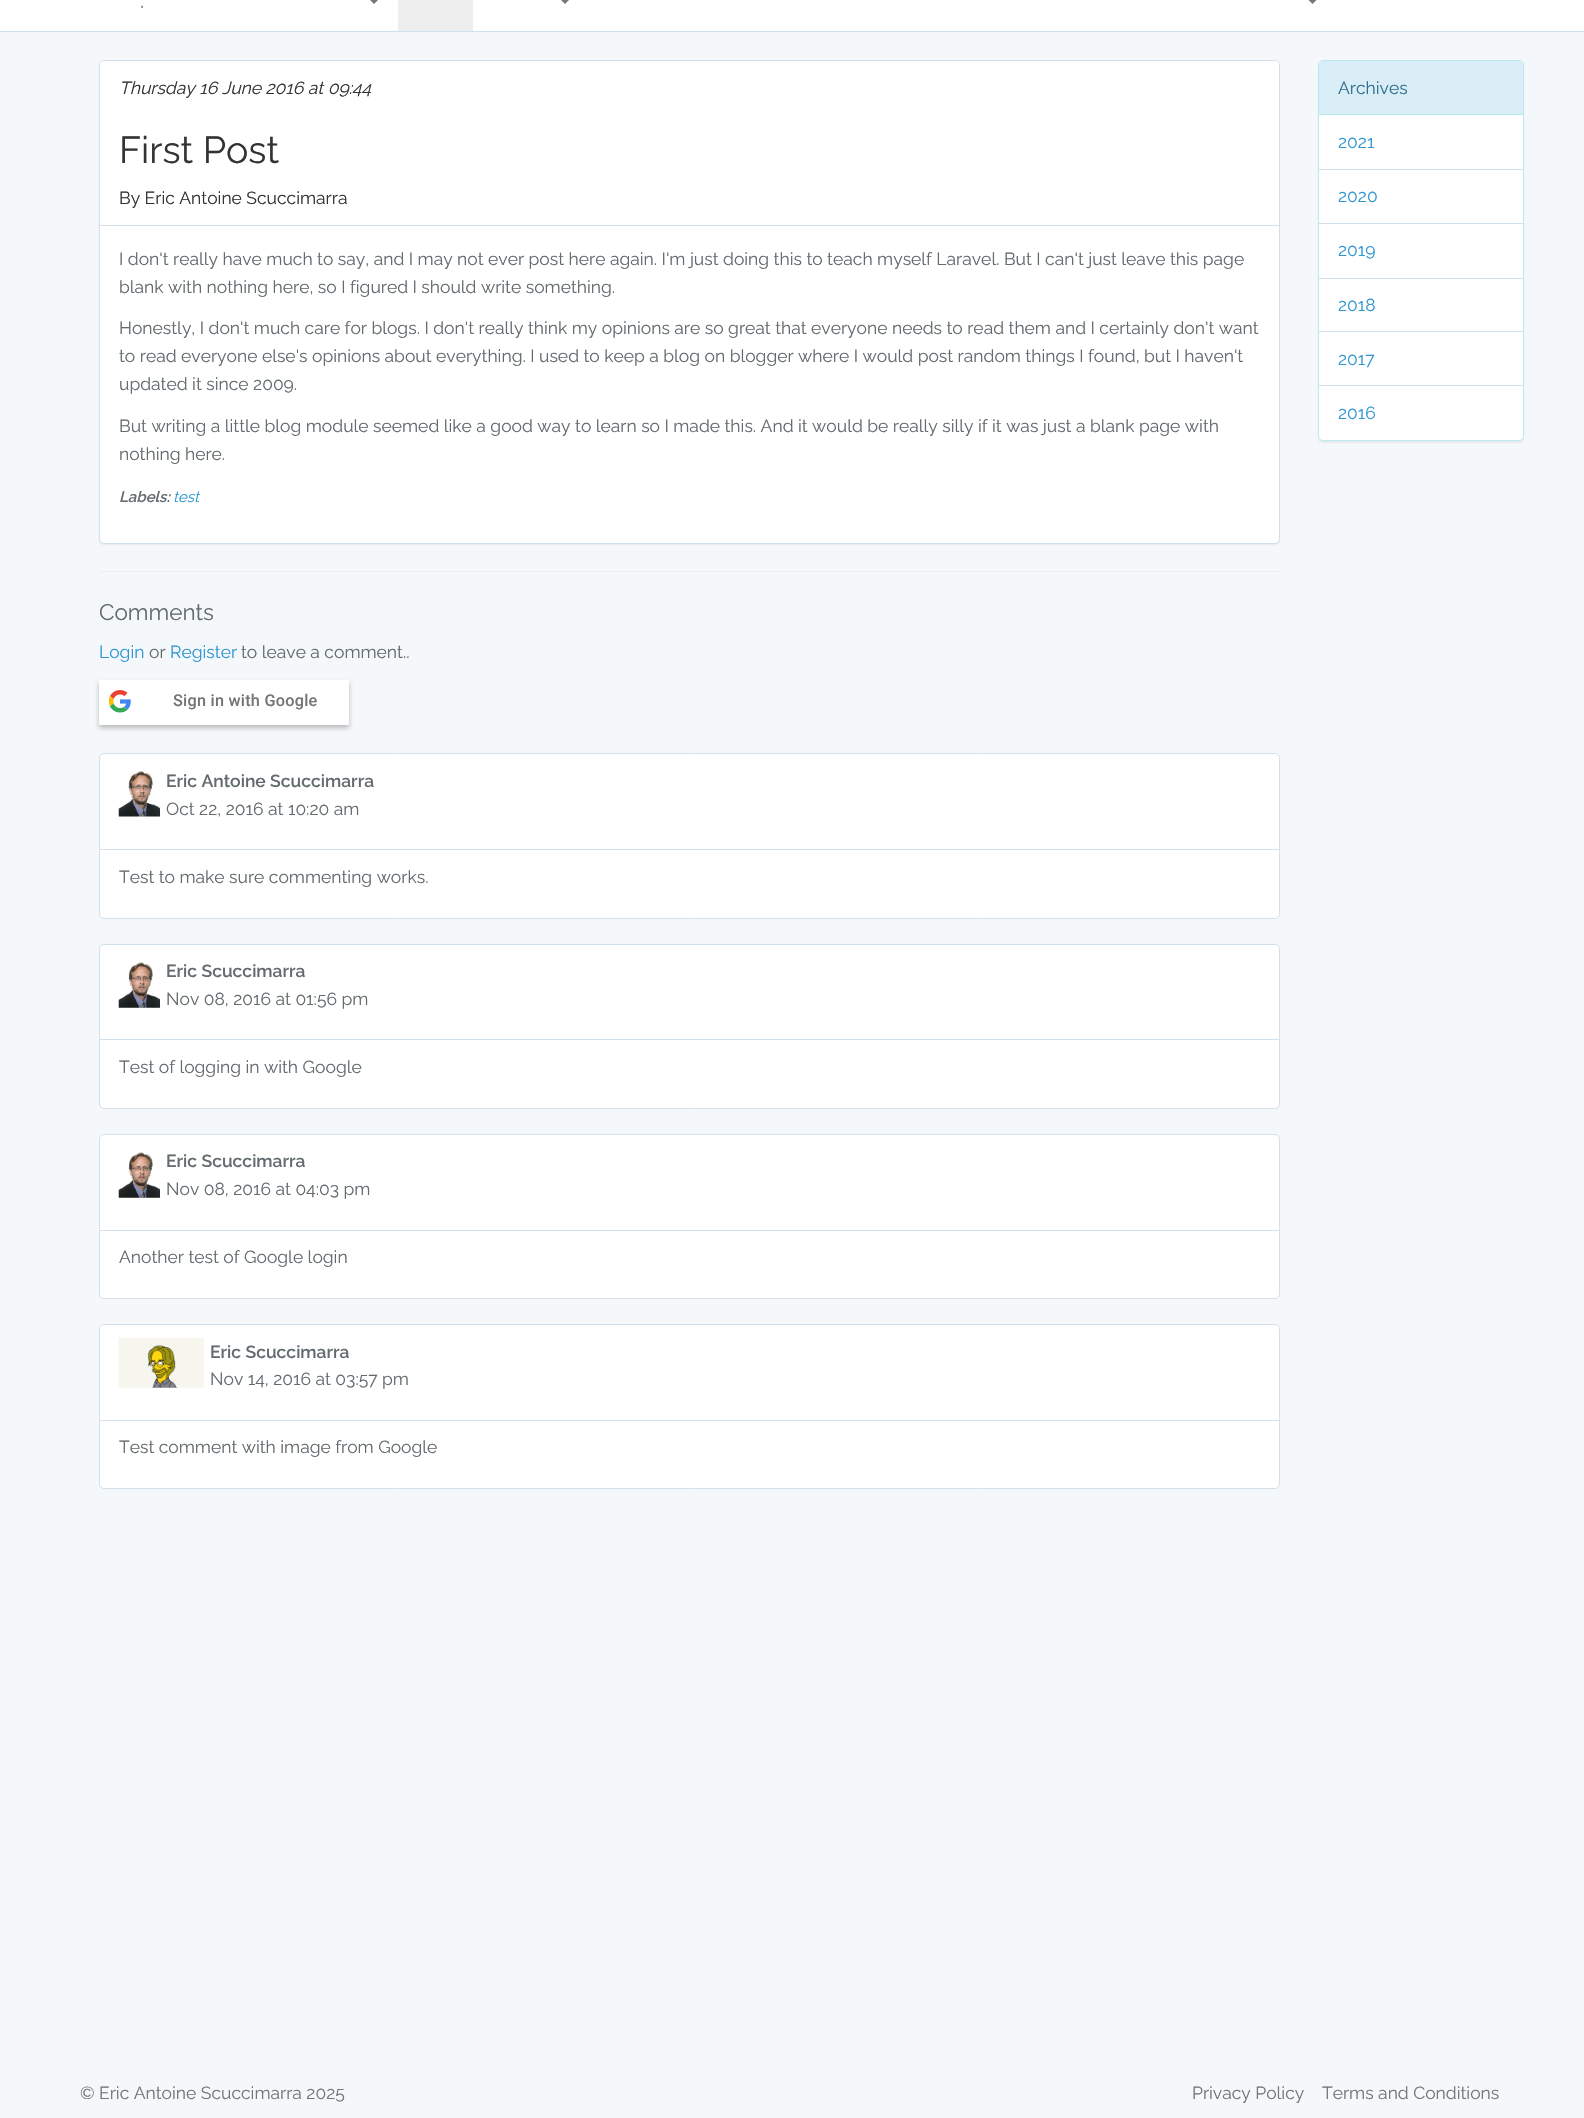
void draw(SkCanvas* canvas) {
    SkPaint paint;
    paint.setAntiAlias(true);
    auto spacedText = [&](const char* s, float x, float y, const SkFont& font, const SkPaint& ink, float letter, float word) {
        std::vector<SkGlyphID> glyphs(font.countText(s, strlen(s), SkTextEncoding::kUTF8));
        std::vector<float> xs(glyphs.size());
        font.textToGlyphs(s, strlen(s), SkTextEncoding::kUTF8, glyphs);
        font.getXPos(glyphs, xs, x);
        float extra = 0;
        for (size_t i = 0; i < glyphs.size(); i++) {
            xs[i] += extra;
            extra += letter + word * (glyphs[i] == font.unicharToGlyph(' '));
        }
        canvas->drawTextBlob(SkTextBlob::MakeFromPosHGlyphs(glyphs, xs, y, font), 0, 0, ink);
    };
    canvas->clear(0xFFF5F8FA);
    paint.setColor(0xFFFFFFFF);
    canvas->drawRect(SkRect::MakeXYWH(0, 0, 1584, 31), paint);
    paint.setColor(0xFFD3E0E9);
    canvas->drawRect(SkRect::MakeXYWH(0, 31, 1584, 1), paint);
    SkFont font1(fontMgr->matchFamilyStyle("Raleway", SkFontStyle::Normal()), 22.5f);
    font1.setSubpixel(true);
    paint.setColor(0xFF757575);
    canvas->drawString(".", 140, 8, font1, paint);
    paint.setColor(0xFF777777);
    canvas->drawPath(SkPathBuilder().moveTo(369, -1).lineTo(379, -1).lineTo(374, 4).close().detach(), paint);
    paint.setColor(0xFFEEEEEE);
    canvas->drawRect(SkRect::MakeXYWH(398, 0, 75, 31), paint);
    paint.setColor(0xFF777777);
    canvas->drawPath(SkPathBuilder().moveTo(560, -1).lineTo(570, -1).lineTo(565, 4).close().detach(), paint);
    canvas->drawPath(SkPathBuilder().moveTo(1307.5f, -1).lineTo(1317.5f, -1).lineTo(1312.5f, 4).close().detach(), paint);
    paint.setColor(0x0D000000);
    paint.setMaskFilter(SkMaskFilter::MakeBlur(kNormal_SkBlurStyle, 0.5f));
    canvas->drawRoundRect(SkRect::MakeXYWH(99, 61, 1181, 484), 5, 5, paint);
    paint.setMaskFilter(nullptr);
    paint.setColor(0xFFFFFFFF);
    canvas->drawRoundRect(SkRect::MakeXYWH(99.5f, 60.5f, 1180, 483), 4.5f, 4.5f, paint);
    paint.setStyle(SkPaint::kStroke_Style);
    paint.setStrokeWidth(1);
    paint.setColor(0xFFD3E0E9);
    canvas->drawRoundRect(SkRect::MakeXYWH(99.5f, 60.5f, 1180, 483), 4.5f, 4.5f, paint);
    paint.setStyle(SkPaint::kFill_Style);
    paint.setColor(0xFFFFFFFF);
    canvas->drawPath(SkPathBuilder().moveTo(104, 61).lineTo(1275, 61).cubicTo(1277, 61, 1279, 63, 1279, 65).lineTo(1279, 226).lineTo(100, 226).lineTo(100, 65).cubicTo(100, 63, 102, 61, 104, 61).close().detach(), paint);
    paint.setColor(0xFFD3E0E9);
    canvas->drawRect(SkRect::MakeXYWH(100, 225, 1179, 1), paint);
    SkFont font2(fontMgr->matchFamilyStyle("Raleway", SkFontStyle::Italic()), 17.5f);
    font2.setSubpixel(true);
    paint.setColor(0xFF333333);
    canvas->drawString("Thursday 16 June 2016 at 09:44", 119, 94, font2, paint);
    SkFont font3(fontMgr->matchFamilyStyle("Raleway", SkFontStyle::Normal()), 37.5f);
    font3.setSubpixel(true);
    canvas->drawString("First Post", 119, 163, font3, paint);
    SkFont font4(fontMgr->matchFamilyStyle("Raleway", SkFontStyle::Normal()), 17.5f);
    font4.setSubpixel(true);
    canvas->drawString("By Eric Antoine Scuccimarra", 119, 204, font4, paint);
    paint.setColor(0xFF636B6F);
    canvas->drawString("I don't really have much to say, and I may not ever post here again. I'm just doing this to teach myself Laravel. But I can't just leave this page", 119, 265, font4, paint);
    canvas->drawString("blank with nothing here, so I figured I should write something.", 119, 293, font4, paint);
    canvas->drawString("Honestly, I don't much care for blogs. I don't really think my opinions are so great that everyone needs to read them and I certainly don't want", 119, 334, font4, paint);
    canvas->drawString("to read everyone else's opinions about everything. I used to keep a blog on blogger where I would post random things I found, but I haven't", 119, 362, font4, paint);
    canvas->drawString("updated it since 2009.", 119, 390, font4, paint);
    canvas->drawString("But writing a little blog module seemed like a good way to learn so I made this. And it would be really silly if it was just a blank page with", 119, 432, font4, paint);
    canvas->drawString("nothing here.", 119, 460, font4, paint);
    SkFont font5(fontMgr->matchFamilyStyle("Raleway", SkFontStyle(600, SkFontStyle::kNormal_Width, SkFontStyle::kItalic_Slant)), 15);
    font5.setSubpixel(true);
    canvas->drawString("Labels:", 119, 502, font5, paint);
    SkFont font6(fontMgr->matchFamilyStyle("Raleway", SkFontStyle::Italic()), 15);
    font6.setSubpixel(true);
    paint.setColor(0xFF3097D1);
    canvas->drawString("test", 173, 502, font6, paint);
    paint.setColor(0xFFEEEEEE);
    canvas->drawRect(SkRect::MakeXYWH(99, 571, 1181, 1), paint);
    paint.setColor(0xFF636B6F);
    canvas->drawString("Comments", 99, 620, font1, paint);
    paint.setColor(0xFF3097D1);
    canvas->drawString("Login", 99, 658, font4, paint);
    paint.setColor(0xFF636B6F);
    canvas->drawString("or", 149, 658, font4, paint);
    paint.setColor(0xFF3097D1);
    canvas->drawString("Register", 170, 658, font4, paint);
    paint.setColor(0xFF636B6F);
    canvas->drawString("to leave a comment..", 241, 658, font4, paint);
    paint.setColor(0x40000000);
    paint.setMaskFilter(SkMaskFilter::MakeBlur(kNormal_SkBlurStyle, 2.5f));
    canvas->drawRoundRect(SkRect::MakeXYWH(99, 683, 250, 45), 1, 1, paint);
    paint.setMaskFilter(nullptr);
    paint.setColor(0xFFFFFFFF);
    canvas->drawRoundRect(SkRect::MakeXYWH(99, 680, 250, 45), 1, 1, paint);
    canvas->drawImageRect(SkImages::DeferredFromEncodedData(SkData::MakeFromFileName("img1.png")), SkRect::MakeXYWH(109, 690, 22, 23), SkSamplingOptions());
    SkFont font7(fontMgr->matchFamilyStyle("Roboto", SkFontStyle(500, SkFontStyle::kNormal_Width, SkFontStyle::kUpright_Slant)), 16.25f);
    font7.setSubpixel(true);
    paint.setColor(0xFF757575);
    spacedText("Sign in with Google", 173, 706, font7, paint, 0.25f, 0);
    paint.setColor(0xFFFFFFFF);
    canvas->drawPath(SkPathBuilder().moveTo(104, 753.5f).lineTo(1275, 753.5f).cubicTo(1277.5f, 753.5f, 1279.5f, 755.5f, 1279.5f, 758).lineTo(1279.5f, 849.5f).lineTo(99.5f, 849.5f).lineTo(99.5f, 758).cubicTo(99.5f, 755.5f, 101.5f, 753.5f, 104, 753.5f).close().detach(), paint);
    paint.setStyle(SkPaint::kStroke_Style);
    paint.setColor(0xFFD3E0E9);
    canvas->drawPath(SkPathBuilder().moveTo(104, 753.5f).lineTo(1275, 753.5f).cubicTo(1277.5f, 753.5f, 1279.5f, 755.5f, 1279.5f, 758).lineTo(1279.5f, 849.5f).lineTo(99.5f, 849.5f).lineTo(99.5f, 758).cubicTo(99.5f, 755.5f, 101.5f, 753.5f, 104, 753.5f).close().detach(), paint);
    canvas->drawImageRect(SkImages::DeferredFromEncodedData(SkData::MakeFromFileName("img2.png")), SkRect::MakeXYWH(118, 771, 42, 46), SkSamplingOptions());
    SkFont font8(fontMgr->matchFamilyStyle("Raleway", SkFontStyle(600, SkFontStyle::kNormal_Width, SkFontStyle::kUpright_Slant)), 17.5f);
    font8.setSubpixel(true);
    paint.setStyle(SkPaint::kFill_Style);
    paint.setColor(0xFF636B6F);
    canvas->drawString("Eric Antoine Scuccimarra", 166, 787, font8, paint);
    canvas->drawString("Oct 22, 2016 at 10:20 am", 166, 815, font4, paint);
    paint.setColor(0xFFFFFFFF);
    canvas->drawPath(SkPathBuilder().moveTo(99.5f, 849.5f).lineTo(1279.5f, 849.5f).lineTo(1279.5f, 914).cubicTo(1279.5f, 916.5f, 1277.5f, 918.5f, 1275, 918.5f).lineTo(104, 918.5f).cubicTo(101.5f, 918.5f, 99.5f, 916.5f, 99.5f, 914).close().detach(), paint);
    paint.setStyle(SkPaint::kStroke_Style);
    paint.setColor(0xFFD3E0E9);
    canvas->drawPath(SkPathBuilder().moveTo(99.5f, 849.5f).lineTo(1279.5f, 849.5f).lineTo(1279.5f, 914).cubicTo(1279.5f, 916.5f, 1277.5f, 918.5f, 1275, 918.5f).lineTo(104, 918.5f).cubicTo(101.5f, 918.5f, 99.5f, 916.5f, 99.5f, 914).close().detach(), paint);
    paint.setStyle(SkPaint::kFill_Style);
    paint.setColor(0xFF636B6F);
    canvas->drawString("Test to make sure commenting works.", 119, 883, font4, paint);
    paint.setColor(0xFFFFFFFF);
    canvas->drawPath(SkPathBuilder().moveTo(104, 944.5f).lineTo(1275, 944.5f).cubicTo(1277.5f, 944.5f, 1279.5f, 946.5f, 1279.5f, 949).lineTo(1279.5f, 1039.5f).lineTo(99.5f, 1039.5f).lineTo(99.5f, 949).cubicTo(99.5f, 946.5f, 101.5f, 944.5f, 104, 944.5f).close().detach(), paint);
    paint.setStyle(SkPaint::kStroke_Style);
    paint.setColor(0xFFD3E0E9);
    canvas->drawPath(SkPathBuilder().moveTo(104, 944.5f).lineTo(1275, 944.5f).cubicTo(1277.5f, 944.5f, 1279.5f, 946.5f, 1279.5f, 949).lineTo(1279.5f, 1039.5f).lineTo(99.5f, 1039.5f).lineTo(99.5f, 949).cubicTo(99.5f, 946.5f, 101.5f, 944.5f, 104, 944.5f).close().detach(), paint);
    canvas->drawImageRect(SkImages::DeferredFromEncodedData(SkData::MakeFromFileName("img3.png")), SkRect::MakeXYWH(118, 962, 42, 46), SkSamplingOptions());
    paint.setStyle(SkPaint::kFill_Style);
    paint.setColor(0xFF636B6F);
    canvas->drawString("Eric Scuccimarra", 166, 977, font8, paint);
    canvas->drawString("Nov 08, 2016 at 01:56 pm", 166, 1005, font4, paint);
    paint.setColor(0xFFFFFFFF);
    canvas->drawPath(SkPathBuilder().moveTo(99.5f, 1039.5f).lineTo(1279.5f, 1039.5f).lineTo(1279.5f, 1104).cubicTo(1279.5f, 1106.5f, 1277.5f, 1108.5f, 1275, 1108.5f).lineTo(104, 1108.5f).cubicTo(101.5f, 1108.5f, 99.5f, 1106.5f, 99.5f, 1104).close().detach(), paint);
    paint.setStyle(SkPaint::kStroke_Style);
    paint.setColor(0xFFD3E0E9);
    canvas->drawPath(SkPathBuilder().moveTo(99.5f, 1039.5f).lineTo(1279.5f, 1039.5f).lineTo(1279.5f, 1104).cubicTo(1279.5f, 1106.5f, 1277.5f, 1108.5f, 1275, 1108.5f).lineTo(104, 1108.5f).cubicTo(101.5f, 1108.5f, 99.5f, 1106.5f, 99.5f, 1104).close().detach(), paint);
    paint.setStyle(SkPaint::kFill_Style);
    paint.setColor(0xFF636B6F);
    canvas->drawString("Test of logging in with Google", 119, 1073, font4, paint);
    paint.setColor(0xFFFFFFFF);
    canvas->drawPath(SkPathBuilder().moveTo(104, 1134.5f).lineTo(1275, 1134.5f).cubicTo(1277.5f, 1134.5f, 1279.5f, 1136.5f, 1279.5f, 1139).lineTo(1279.5f, 1230.5f).lineTo(99.5f, 1230.5f).lineTo(99.5f, 1139).cubicTo(99.5f, 1136.5f, 101.5f, 1134.5f, 104, 1134.5f).close().detach(), paint);
    paint.setStyle(SkPaint::kStroke_Style);
    paint.setColor(0xFFD3E0E9);
    canvas->drawPath(SkPathBuilder().moveTo(104, 1134.5f).lineTo(1275, 1134.5f).cubicTo(1277.5f, 1134.5f, 1279.5f, 1136.5f, 1279.5f, 1139).lineTo(1279.5f, 1230.5f).lineTo(99.5f, 1230.5f).lineTo(99.5f, 1139).cubicTo(99.5f, 1136.5f, 101.5f, 1134.5f, 104, 1134.5f).close().detach(), paint);
    canvas->drawImageRect(SkImages::DeferredFromEncodedData(SkData::MakeFromFileName("img3.png")), SkRect::MakeXYWH(118, 1152, 42, 46), SkSamplingOptions());
    paint.setStyle(SkPaint::kFill_Style);
    paint.setColor(0xFF636B6F);
    canvas->drawString("Eric Scuccimarra", 166, 1167, font8, paint);
    canvas->drawString("Nov 08, 2016 at 04:03 pm", 166, 1195, font4, paint);
    paint.setColor(0xFFFFFFFF);
    canvas->drawPath(SkPathBuilder().moveTo(99.5f, 1230.5f).lineTo(1279.5f, 1230.5f).lineTo(1279.5f, 1294).cubicTo(1279.5f, 1296.5f, 1277.5f, 1298.5f, 1275, 1298.5f).lineTo(104, 1298.5f).cubicTo(101.5f, 1298.5f, 99.5f, 1296.5f, 99.5f, 1294).close().detach(), paint);
    paint.setStyle(SkPaint::kStroke_Style);
    paint.setColor(0xFFD3E0E9);
    canvas->drawPath(SkPathBuilder().moveTo(99.5f, 1230.5f).lineTo(1279.5f, 1230.5f).lineTo(1279.5f, 1294).cubicTo(1279.5f, 1296.5f, 1277.5f, 1298.5f, 1275, 1298.5f).lineTo(104, 1298.5f).cubicTo(101.5f, 1298.5f, 99.5f, 1296.5f, 99.5f, 1294).close().detach(), paint);
    paint.setStyle(SkPaint::kFill_Style);
    paint.setColor(0xFF636B6F);
    canvas->drawString("Another test of Google login", 119, 1263, font4, paint);
    paint.setColor(0xFFFFFFFF);
    canvas->drawPath(SkPathBuilder().moveTo(104, 1324.5f).lineTo(1275, 1324.5f).cubicTo(1277.5f, 1324.5f, 1279.5f, 1326.5f, 1279.5f, 1329).lineTo(1279.5f, 1420.5f).lineTo(99.5f, 1420.5f).lineTo(99.5f, 1329).cubicTo(99.5f, 1326.5f, 101.5f, 1324.5f, 104, 1324.5f).close().detach(), paint);
    paint.setStyle(SkPaint::kStroke_Style);
    paint.setColor(0xFFD3E0E9);
    canvas->drawPath(SkPathBuilder().moveTo(104, 1324.5f).lineTo(1275, 1324.5f).cubicTo(1277.5f, 1324.5f, 1279.5f, 1326.5f, 1279.5f, 1329).lineTo(1279.5f, 1420.5f).lineTo(99.5f, 1420.5f).lineTo(99.5f, 1329).cubicTo(99.5f, 1326.5f, 101.5f, 1324.5f, 104, 1324.5f).close().detach(), paint);
    canvas->drawImageRect(SkImages::DeferredFromEncodedData(SkData::MakeFromFileName("img4.png")), SkRect::MakeXYWH(118, 1337, 86, 51), SkSamplingOptions());
    paint.setStyle(SkPaint::kFill_Style);
    paint.setColor(0xFF636B6F);
    canvas->drawString("Eric Scuccimarra", 210, 1358, font8, paint);
    canvas->drawString("Nov 14, 2016 at 03:57 pm", 210, 1385, font4, paint);
    paint.setColor(0xFFFFFFFF);
    canvas->drawPath(SkPathBuilder().moveTo(99.5f, 1420.5f).lineTo(1279.5f, 1420.5f).lineTo(1279.5f, 1484).cubicTo(1279.5f, 1486.5f, 1277.5f, 1488.5f, 1275, 1488.5f).lineTo(104, 1488.5f).cubicTo(101.5f, 1488.5f, 99.5f, 1486.5f, 99.5f, 1484).close().detach(), paint);
    paint.setStyle(SkPaint::kStroke_Style);
    paint.setColor(0xFFD3E0E9);
    canvas->drawPath(SkPathBuilder().moveTo(99.5f, 1420.5f).lineTo(1279.5f, 1420.5f).lineTo(1279.5f, 1484).cubicTo(1279.5f, 1486.5f, 1277.5f, 1488.5f, 1275, 1488.5f).lineTo(104, 1488.5f).cubicTo(101.5f, 1488.5f, 99.5f, 1486.5f, 99.5f, 1484).close().detach(), paint);
    paint.setStyle(SkPaint::kFill_Style);
    paint.setColor(0xFF636B6F);
    canvas->drawString("Test comment with image from Google", 119, 1453, font4, paint);
    paint.setColor(0x0D000000);
    paint.setMaskFilter(SkMaskFilter::MakeBlur(kNormal_SkBlurStyle, 0.5f));
    canvas->drawRoundRect(SkRect::MakeXYWH(1318, 61, 206, 382), 5, 5, paint);
    paint.setMaskFilter(nullptr);
    paint.setColor(0xFFFFFFFF);
    canvas->drawRoundRect(SkRect::MakeXYWH(1318.5f, 60.5f, 205, 380), 4.5f, 4.5f, paint);
    paint.setStyle(SkPaint::kStroke_Style);
    paint.setColor(0xFFBCE8F1);
    canvas->drawRoundRect(SkRect::MakeXYWH(1318.5f, 60.5f, 205, 380), 4.5f, 4.5f, paint);
    paint.setStyle(SkPaint::kFill_Style);
    paint.setColor(0xFFD9EDF7);
    canvas->drawPath(SkPathBuilder().moveTo(1323, 61).lineTo(1519, 61).cubicTo(1521, 61, 1523, 63, 1523, 65).lineTo(1523, 115).lineTo(1319, 115).lineTo(1319, 65).cubicTo(1319, 63, 1321, 61, 1323, 61).close().detach(), paint);
    paint.setColor(0xFFBCE8F1);
    canvas->drawRect(SkRect::MakeXYWH(1319, 114, 204, 1), paint);
    paint.setColor(0xFF31708F);
    canvas->drawString("Archives", 1338, 94, font4, paint);
    paint.setColor(0xFFD3E0E9);
    canvas->drawRect(SkRect::MakeXYWH(1319, 169, 204, 1), paint);
    paint.setColor(0xFF3097D1);
    canvas->drawString("2021", 1338, 148, font4, paint);
    paint.setColor(0xFFD3E0E9);
    canvas->drawRect(SkRect::MakeXYWH(1319, 223, 204, 1), paint);
    paint.setColor(0xFF3097D1);
    canvas->drawString("2020", 1338, 202, font4, paint);
    paint.setColor(0xFFD3E0E9);
    canvas->drawRect(SkRect::MakeXYWH(1319, 278, 204, 1), paint);
    paint.setColor(0xFF3097D1);
    canvas->drawString("2019", 1338, 256, font4, paint);
    paint.setColor(0xFFD3E0E9);
    canvas->drawRect(SkRect::MakeXYWH(1319, 331, 204, 1), paint);
    paint.setColor(0xFF3097D1);
    canvas->drawString("2018", 1338, 311, font4, paint);
    canvas->drawString("2017", 1338, 365, font4, paint);
    paint.setColor(0xFFFFFFFF);
    canvas->drawPath(SkPathBuilder().moveTo(1319, 385).lineTo(1523, 385).lineTo(1523, 436).cubicTo(1523, 438, 1521, 440, 1519, 440).lineTo(1323, 440).cubicTo(1321, 440, 1319, 438, 1319, 436).close().detach(), paint);
    paint.setColor(0xFFD3E0E9);
    canvas->drawRect(SkRect::MakeXYWH(1319, 385, 204, 1), paint);
    paint.setColor(0xFF3097D1);
    canvas->drawString("2016", 1338, 419, font4, paint);
    paint.setColor(0xFF757575);
    canvas->drawString("© Eric Antoine Scuccimarra 2025", 80, 2099, font4, paint);
    canvas->drawString("Privacy Policy", 1192, 2099, font4, paint);
    canvas->drawString("Terms and Conditions", 1322, 2099, font4, paint);
}
